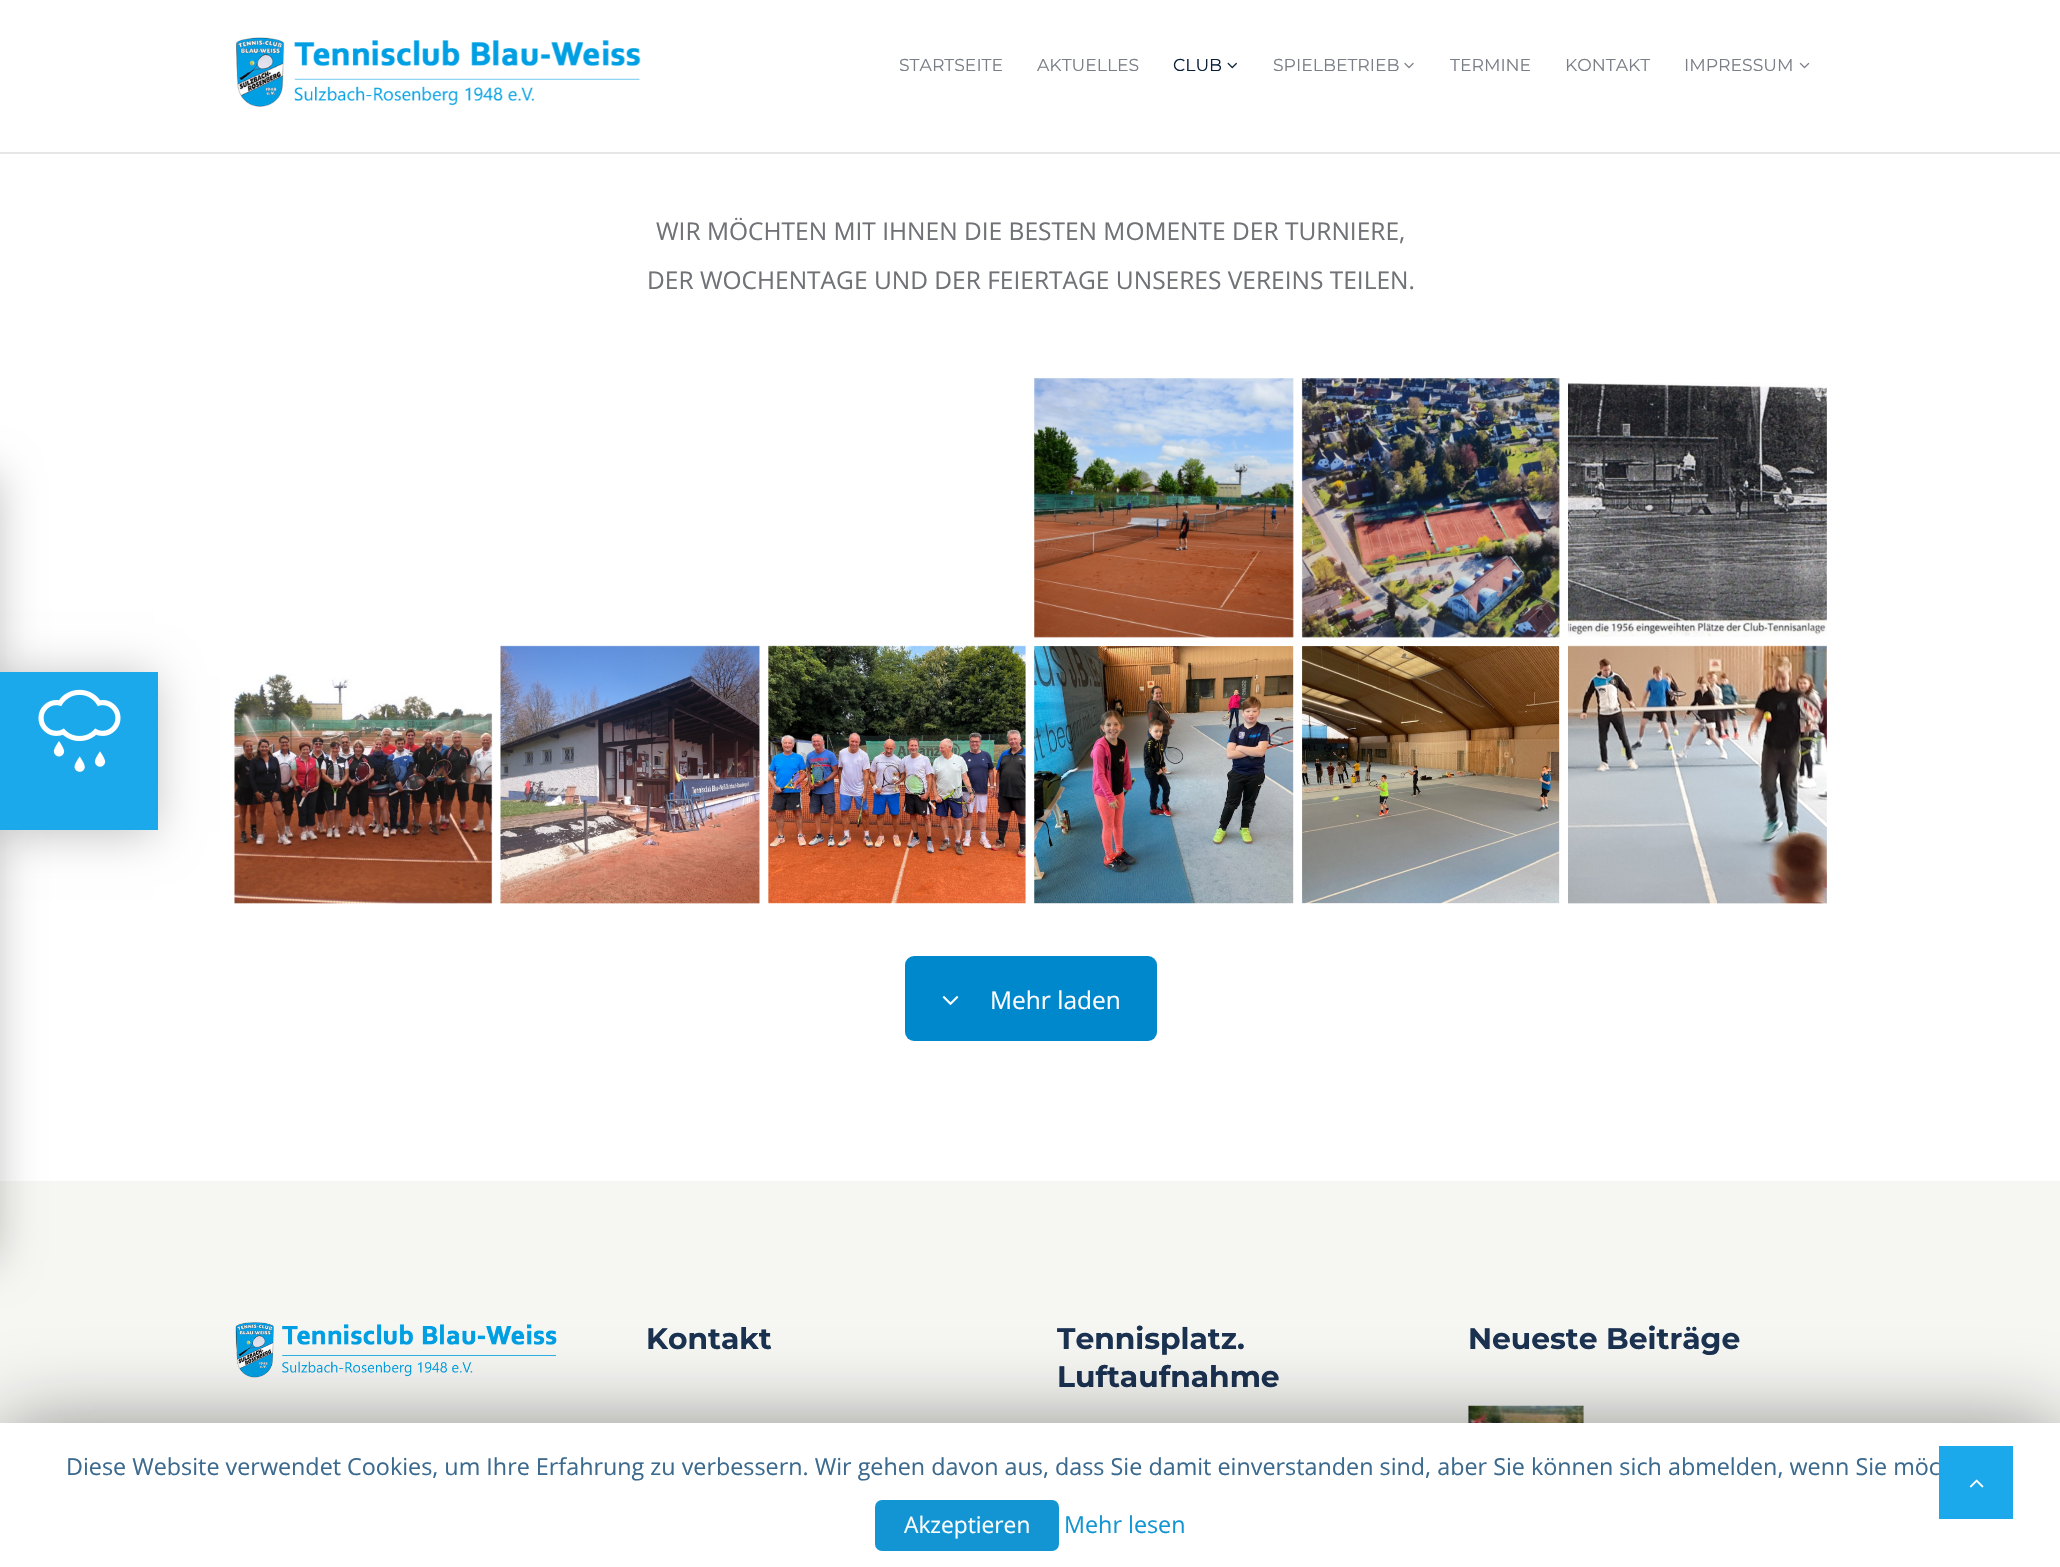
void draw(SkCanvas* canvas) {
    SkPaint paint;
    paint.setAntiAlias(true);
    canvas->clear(0xFFFFFFFF);
    paint.setColor(0xFFF6F7F3);
    canvas->drawRect(SkRect::MakeXYWH(0, 1181, 2060, 242), paint);
    paint.setColor(0x40000000);
    paint.setMaskFilter(SkMaskFilter::MakeBlur(kNormal_SkBlurStyle, 22));
    canvas->drawRect(SkRect::MakeXYWH(-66, 474, 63, 786), paint);
    paint.setMaskFilter(nullptr);
    paint.setMaskFilter(SkMaskFilter::MakeBlur(kNormal_SkBlurStyle, 22));
    canvas->drawRect(SkRect::MakeXYWH(-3, 676, 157, 157), paint);
    paint.setMaskFilter(nullptr);
    paint.setColor(0xFF1CA9EB);
    canvas->drawRect(SkRect::MakeXYWH(0, 672, 158, 158), paint);
    canvas->drawImageRect(SkImages::DeferredFromEncodedData(SkData::MakeFromFileName("img1.png")), SkRect::MakeXYWH(38, 689, 83, 83), SkSamplingOptions());
    paint.setColor(0xFFE6E6E6);
    canvas->drawPath(SkPathBuilder().moveTo(0, 152).lineTo(0, 154).lineTo(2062, 154).lineTo(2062, 2).lineTo(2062, 152).close().detach(), paint);
    canvas->drawImageRect(SkImages::DeferredFromEncodedData(SkData::MakeFromFileName("img2.png")), SkRect::MakeXYWH(236, 37, 405, 70), SkSamplingOptions());
    SkFont font1(fontMgr->matchFamilyStyle("Montserrat", SkFontStyle::Normal()), 17.25f);
    font1.setSubpixel(true);
    paint.setColor(0xFF7A7F87);
    canvas->drawString("STARTSEITE", 899, 71, font1, paint);
    canvas->drawString("AKTUELLES", 1037, 71, font1, paint);
    paint.setColor(0xFF061F37);
    canvas->drawString("CLUB", 1173, 71, font1, paint);
    canvas->drawImageRect(SkImages::DeferredFromEncodedData(SkData::MakeFromFileName("img3.png")), SkRect::MakeXYWH(1227, 62, 10, 7), SkSamplingOptions());
    paint.setColor(0xFF7A7F87);
    canvas->drawString("SPIELBETRIEB", 1273, 71, font1, paint);
    canvas->drawImageRect(SkImages::DeferredFromEncodedData(SkData::MakeFromFileName("img4.png")), SkRect::MakeXYWH(1404, 62, 10, 7), SkSamplingOptions());
    canvas->drawString("TERMINE", 1450, 71, font1, paint);
    canvas->drawString("KONTAKT", 1565, 71, font1, paint);
    canvas->drawString("IMPRESSUM", 1684, 71, font1, paint);
    canvas->drawImageRect(SkImages::DeferredFromEncodedData(SkData::MakeFromFileName("img5.png")), SkRect::MakeXYWH(1799, 62, 11, 7), SkSamplingOptions());
    SkFont font2(fontMgr->matchFamilyStyle("Open Sans", SkFontStyle::Normal()), 24.5f);
    font2.setSubpixel(true);
    paint.setColor(0xFF707276);
    canvas->drawString("WIR MÖCHTEN MIT IHNEN DIE BESTEN MOMENTE DER TURNIERE,", 656, 240, font2, paint);
    canvas->drawString("DER WOCHENTAGE UND DER FEIERTAGE UNSERES VEREINS TEILEN.", 647, 289, font2, paint);
    canvas->drawImageRect(SkImages::DeferredFromEncodedData(SkData::MakeFromFileName("img6.png")), SkRect::MakeXYWH(1034, 378, 260, 260), SkSamplingOptions());
    canvas->drawImageRect(SkImages::DeferredFromEncodedData(SkData::MakeFromFileName("img7.png")), SkRect::MakeXYWH(1301, 378, 259, 260), SkSamplingOptions());
    canvas->drawImageRect(SkImages::DeferredFromEncodedData(SkData::MakeFromFileName("img8.png")), SkRect::MakeXYWH(1568, 383, 259, 254), SkSamplingOptions());
    canvas->drawImageRect(SkImages::DeferredFromEncodedData(SkData::MakeFromFileName("img9.png")), SkRect::MakeXYWH(234, 673, 259, 231), SkSamplingOptions());
    canvas->drawImageRect(SkImages::DeferredFromEncodedData(SkData::MakeFromFileName("img10.png")), SkRect::MakeXYWH(500, 645, 260, 259), SkSamplingOptions());
    canvas->drawImageRect(SkImages::DeferredFromEncodedData(SkData::MakeFromFileName("img11.png")), SkRect::MakeXYWH(768, 645, 258, 259), SkSamplingOptions());
    canvas->drawImageRect(SkImages::DeferredFromEncodedData(SkData::MakeFromFileName("img12.png")), SkRect::MakeXYWH(1034, 646, 260, 258), SkSamplingOptions());
    canvas->drawImageRect(SkImages::DeferredFromEncodedData(SkData::MakeFromFileName("img13.png")), SkRect::MakeXYWH(1302, 646, 258, 258), SkSamplingOptions());
    canvas->drawImageRect(SkImages::DeferredFromEncodedData(SkData::MakeFromFileName("img14.png")), SkRect::MakeXYWH(1568, 645, 259, 259), SkSamplingOptions());
    paint.setColor(0xFF0088CC);
    canvas->drawRoundRect(SkRect::MakeXYWH(905, 956, 252, 85), 9, 9, paint);
    canvas->drawImageRect(SkImages::DeferredFromEncodedData(SkData::MakeFromFileName("img15.png")), SkRect::MakeXYWH(942, 996, 17, 9), SkSamplingOptions());
    paint.setColor(0xFFFFFFFF);
    canvas->drawString("Mehr laden", 990, 1009, font2, paint);
    canvas->drawImageRect(SkImages::DeferredFromEncodedData(SkData::MakeFromFileName("img16.png")), SkRect::MakeXYWH(235, 1322, 322, 56), SkSamplingOptions());
    SkFont font3(fontMgr->matchFamilyStyle("Montserrat", SkFontStyle::Bold()), 29.75f);
    font3.setSubpixel(true);
    paint.setColor(0xFF1A3150);
    canvas->drawString("Kontakt", 646, 1349, font3, paint);
    canvas->drawString("Tennisplatz.", 1057, 1349, font3, paint);
    canvas->drawString("Luftaufnahme", 1057, 1387, font3, paint);
    canvas->drawString("Neueste Beiträge", 1468, 1349, font3, paint);
    canvas->drawImageRect(SkImages::DeferredFromEncodedData(SkData::MakeFromFileName("img17.png")), SkRect::MakeXYWH(1468, 1405, 116, 18), SkSamplingOptions());
    paint.setColor(0x80000000);
    paint.setMaskFilter(SkMaskFilter::MakeBlur(kNormal_SkBlurStyle, 44));
    canvas->drawRect(SkRect::MakeXYWH(0, 1432, 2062, 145), paint);
    paint.setMaskFilter(nullptr);
    paint.setColor(0xFFFFFFFF);
    canvas->drawRect(SkRect::MakeXYWH(0, 1423, 2060, 144), paint);
    SkFont font4(fontMgr->matchFamilyStyle("Open Sans", SkFontStyle::Normal()), 23.33f);
    font4.setSubpixel(true);
    paint.setColor(0xFF3B6A8E);
    canvas->drawString("Diese Website verwendet Cookies, um Ihre Erfahrung zu verbessern. Wir gehen davon aus, dass Sie damit einverstanden sind, aber Sie können sich abmelden, wenn Sie möc", 66, 1475, font4, paint);
    paint.setColor(0xFF1295D2);
    canvas->drawRoundRect(SkRect::MakeXYWH(875, 1500, 184, 51), 7, 7, paint);
    SkFont font5(fontMgr->matchFamilyStyle("Open Sans", SkFontStyle::Normal()), 22.75f);
    font5.setSubpixel(true);
    paint.setColor(0xFFFFFFFF);
    canvas->drawString("Akzeptieren", 904, 1533, font5, paint);
    paint.setColor(0xFF1295D2);
    canvas->drawString("Mehr lesen", 1064, 1533, font4, paint);
    paint.setColor(0xFF1CA9EB);
    canvas->drawRect(SkRect::MakeXYWH(1939, 1446, 74, 73), paint);
    canvas->drawImageRect(SkImages::DeferredFromEncodedData(SkData::MakeFromFileName("img18.png")), SkRect::MakeXYWH(1969, 1479, 15, 9), SkSamplingOptions());
}
